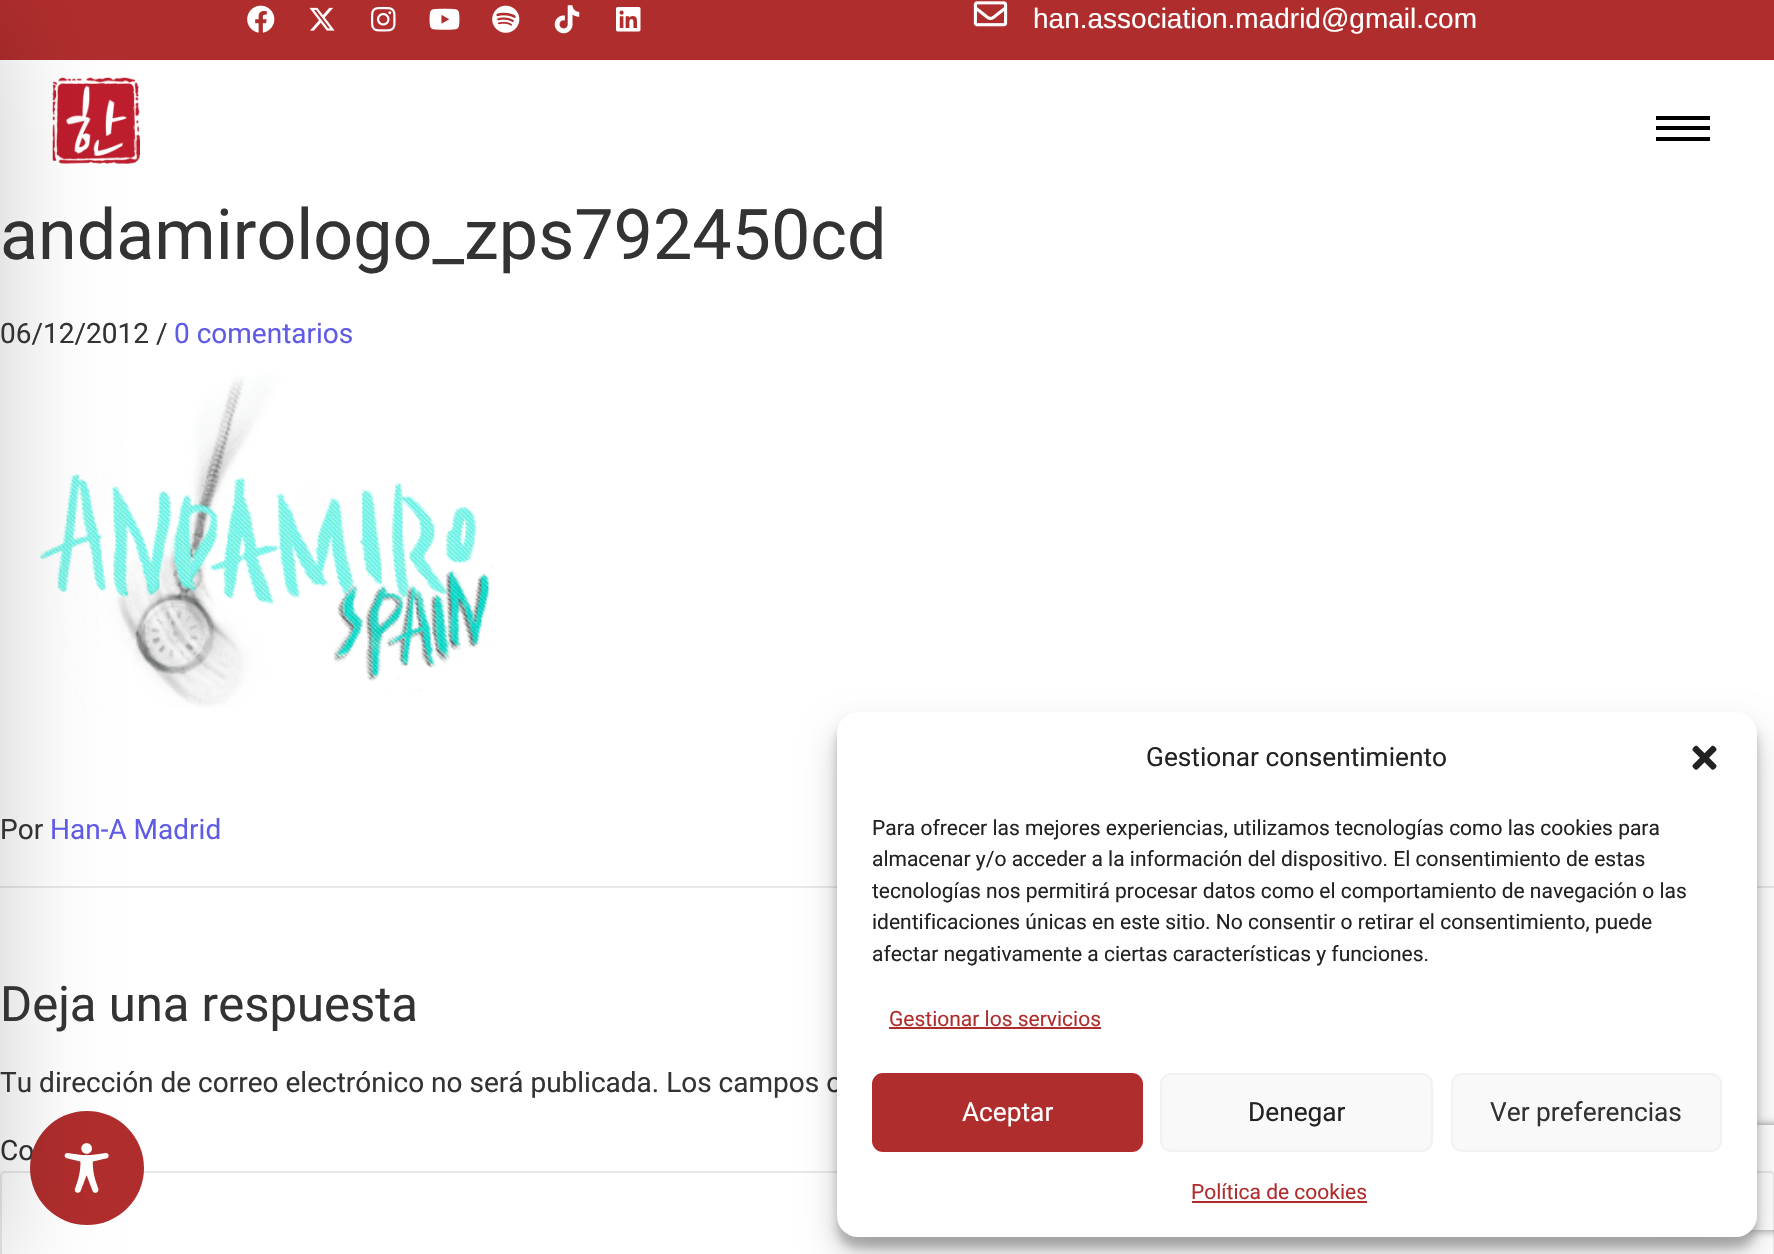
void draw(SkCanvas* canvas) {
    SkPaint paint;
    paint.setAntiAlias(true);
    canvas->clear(0xFFFFFFFF);
    paint.setColor(0xFFB02D2D);
    canvas->drawRect(SkRect::MakeXYWH(0, 0, 1774, 60), paint);
    canvas->drawImageRect(SkImages::DeferredFromEncodedData(SkData::MakeFromFileName("img9.png")), SkRect::MakeXYWH(52, 77, 88, 87), SkSamplingOptions());
    canvas->drawImageRect(SkImages::DeferredFromEncodedData(SkData::MakeFromFileName("img10.png")), SkRect::MakeXYWH(39, 375, 455, 333), SkSamplingOptions());
    paint.setColor(0xFFE8E8E8);
    canvas->drawRect(SkRect::MakeXYWH(0, 886, 1774, 2), paint);
    paint.setStyle(SkPaint::kStroke_Style);
    paint.setStrokeWidth(2);
    canvas->drawRoundRect(SkRect::MakeXYWH(1, 1172, 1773, 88), 4, 4, paint);
    SkFont font1(fontMgr->matchFamilyStyle("Roboto", SkFontStyle::Normal()), 28);
    font1.setSubpixel(true);
    paint.setStyle(SkPaint::kFill_Style);
    paint.setColor(0xFF333333);
    canvas->drawString("Co", 0, 1160, font1, paint);
    paint.setColor(0xFFB02D2D);
    canvas->drawCircle(87, 1168, 57, paint);
    canvas->drawImageRect(SkImages::DeferredFromEncodedData(SkData::MakeFromFileName("img12.png")), SkRect::MakeXYWH(64, 1143, 45, 50), SkSamplingOptions());
    paint.setColor(0x33000000);
    paint.setMaskFilter(SkMaskFilter::MakeBlur(kNormal_SkBlurStyle, 52.5f));
    canvas->drawRect(SkRect::MakeXYWH(-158, 18, 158, 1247), paint);
    paint.setMaskFilter(nullptr);
    canvas->drawImageRect(SkImages::DeferredFromEncodedData(SkData::MakeFromFileName("img1.png")), SkRect::MakeXYWH(247, 5, 28, 28), SkSamplingOptions());
    canvas->drawImageRect(SkImages::DeferredFromEncodedData(SkData::MakeFromFileName("img2.png")), SkRect::MakeXYWH(309, 7, 26, 24), SkSamplingOptions());
    canvas->drawImageRect(SkImages::DeferredFromEncodedData(SkData::MakeFromFileName("img3.png")), SkRect::MakeXYWH(371, 6, 25, 26), SkSamplingOptions());
    canvas->drawImageRect(SkImages::DeferredFromEncodedData(SkData::MakeFromFileName("img4.png")), SkRect::MakeXYWH(429, 8, 31, 22), SkSamplingOptions());
    canvas->drawImageRect(SkImages::DeferredFromEncodedData(SkData::MakeFromFileName("img5.png")), SkRect::MakeXYWH(492, 5, 28, 28), SkSamplingOptions());
    canvas->drawImageRect(SkImages::DeferredFromEncodedData(SkData::MakeFromFileName("img6.png")), SkRect::MakeXYWH(554, 5, 26, 29), SkSamplingOptions());
    canvas->drawImageRect(SkImages::DeferredFromEncodedData(SkData::MakeFromFileName("img7.png")), SkRect::MakeXYWH(616, 7, 25, 25), SkSamplingOptions());
    canvas->drawImageRect(SkImages::DeferredFromEncodedData(SkData::MakeFromFileName("img8.png")), SkRect::MakeXYWH(973, 1, 35, 26), SkSamplingOptions());
    SkFont font2(fontMgr->matchFamilyStyle("Liberation Sans", SkFontStyle::Normal()), 28);
    font2.setSubpixel(true);
    paint.setColor(0xFFFFFFFF);
    canvas->drawString("han.association.madrid@gmail.com", 1033, 28, font2, paint);
    paint.setColor(0xFF000000);
    canvas->drawRect(SkRect::MakeXYWH(1656, 116, 54, 4), paint);
    canvas->drawRect(SkRect::MakeXYWH(1656, 126, 54, 4), paint);
    canvas->drawRect(SkRect::MakeXYWH(1656, 137, 54, 4), paint);
    SkFont font3(fontMgr->matchFamilyStyle("Roboto", SkFontStyle::Normal()), 70);
    font3.setSubpixel(true);
    paint.setColor(0xFF333333);
    canvas->drawString("andamirologo_zps792450cd", 0, 259, font3, paint);
    canvas->drawString("06/12/2012 /", 0, 343, font1, paint);
    paint.setColor(0xFF605BE5);
    canvas->drawString("0 comentarios", 174, 343, font1, paint);
    paint.setColor(0xFF333333);
    canvas->drawString("Por", 0, 839, font1, paint);
    paint.setColor(0xFF605BE5);
    canvas->drawString("Han-A Madrid", 50, 839, font1, paint);
    SkFont font4(fontMgr->matchFamilyStyle("Roboto", SkFontStyle::Normal()), 49);
    font4.setSubpixel(true);
    paint.setColor(0xFF333333);
    canvas->drawString("Deja una respuesta", 0, 1021, font4, paint);
    canvas->drawString("Tu dirección de correo electrónico no será publicada. Los campos o", 0, 1092, font1, paint);
    paint.setColor(0x3B000000);
    paint.setMaskFilter(SkMaskFilter::MakeBlur(kNormal_SkBlurStyle, 5));
    canvas->drawRoundRect(SkRect::MakeXYWH(837, 723, 920, 525), 21, 21, paint);
    paint.setMaskFilter(nullptr);
    paint.setColor(0x30000000);
    paint.setMaskFilter(SkMaskFilter::MakeBlur(kNormal_SkBlurStyle, 17.5f));
    canvas->drawRoundRect(SkRect::MakeXYWH(837, 730, 920, 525), 21, 21, paint);
    paint.setMaskFilter(nullptr);
    canvas->save();
    canvas->clipPath(SkPathBuilder(SkPathFillType::kEvenOdd).moveTo(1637, 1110).lineTo(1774, 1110).lineTo(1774, 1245).lineTo(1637, 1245).close().moveTo(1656, 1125).lineTo(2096, 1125).cubicTo(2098, 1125, 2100, 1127, 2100, 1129).lineTo(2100, 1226).cubicTo(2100, 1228, 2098, 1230, 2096, 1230).lineTo(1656, 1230).cubicTo(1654, 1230, 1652, 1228, 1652, 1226).lineTo(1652, 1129).cubicTo(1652, 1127, 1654, 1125, 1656, 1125).close().detach(), true);
    paint.setColor(0xFF808080);
    paint.setMaskFilter(SkMaskFilter::MakeBlur(kNormal_SkBlurStyle, 4.5f));
    canvas->drawRoundRect(SkRect::MakeXYWH(1652, 1125, 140, 105), 4, 4, paint);
    paint.setMaskFilter(nullptr);
    canvas->restore();
    paint.setColor(0xFFFFFFFF);
    canvas->drawRoundRect(SkRect::MakeXYWH(837, 712, 920, 525), 21, 21, paint);
    SkFont font5(fontMgr->matchFamilyStyle("Roboto", SkFontStyle::Normal()), 26.25f);
    font5.setSubpixel(true);
    paint.setColor(0xFF222222);
    canvas->drawString("Gestionar consentimiento", 1146, 766, font5, paint);
    canvas->drawImageRect(SkImages::DeferredFromEncodedData(SkData::MakeFromFileName("img11.png")), SkRect::MakeXYWH(1692, 745, 25, 25), SkSamplingOptions());
    SkFont font6(fontMgr->matchFamilyStyle("Roboto", SkFontStyle::Normal()), 21);
    font6.setSubpixel(true);
    canvas->drawString("Para ofrecer las mejores experiencias, utilizamos tecnologías como las cookies para", 872, 835, font6, paint);
    canvas->drawString("almacenar y/o acceder a la información del dispositivo. El consentimiento de estas", 872, 866, font6, paint);
    canvas->drawString("tecnologías nos permitirá procesar datos como el comportamiento de navegación o las", 872, 898, font6, paint);
    canvas->drawString("identificaciones únicas en este sitio. No consentir o retirar el consentimiento, puede", 872, 929, font6, paint);
    canvas->drawString("afectar negativamente a ciertas características y funciones.", 872, 961, font6, paint);
    paint.setColor(0xFFB02D2D);
    canvas->drawString("Gestionar los servicios", 889, 1026, font6, paint);
    canvas->drawRect(SkRect::MakeXYWH(889, 1027, 212, 2), paint);
    canvas->drawRoundRect(SkRect::MakeXYWH(873, 1074, 269, 77), 10, 10, paint);
    paint.setStyle(SkPaint::kStroke_Style);
    canvas->drawRoundRect(SkRect::MakeXYWH(873, 1074, 269, 77), 10, 10, paint);
    paint.setStyle(SkPaint::kFill_Style);
    paint.setColor(0xFFFFFFFF);
    canvas->drawString("Aceptar", 962, 1121, font5, paint);
    paint.setColor(0xFFF9F9F9);
    canvas->drawRoundRect(SkRect::MakeXYWH(1161, 1074, 271, 77), 10, 10, paint);
    paint.setStyle(SkPaint::kStroke_Style);
    paint.setColor(0xFFF2F2F2);
    canvas->drawRoundRect(SkRect::MakeXYWH(1161, 1074, 271, 77), 10, 10, paint);
    paint.setStyle(SkPaint::kFill_Style);
    paint.setColor(0xFF222222);
    canvas->drawString("Denegar", 1248, 1121, font5, paint);
    paint.setColor(0xFFF9F9F9);
    canvas->drawRoundRect(SkRect::MakeXYWH(1452, 1074, 269, 77), 10, 10, paint);
    paint.setStyle(SkPaint::kStroke_Style);
    paint.setColor(0xFFF2F2F2);
    canvas->drawRoundRect(SkRect::MakeXYWH(1452, 1074, 269, 77), 10, 10, paint);
    paint.setStyle(SkPaint::kFill_Style);
    paint.setColor(0xFF333333);
    canvas->drawString("Ver preferencias", 1490, 1121, font5, paint);
    paint.setColor(0xFFB02D2D);
    canvas->drawString("Política de cookies", 1191, 1199, font6, paint);
    canvas->drawRect(SkRect::MakeXYWH(1192, 1201, 175, 2), paint);
}
